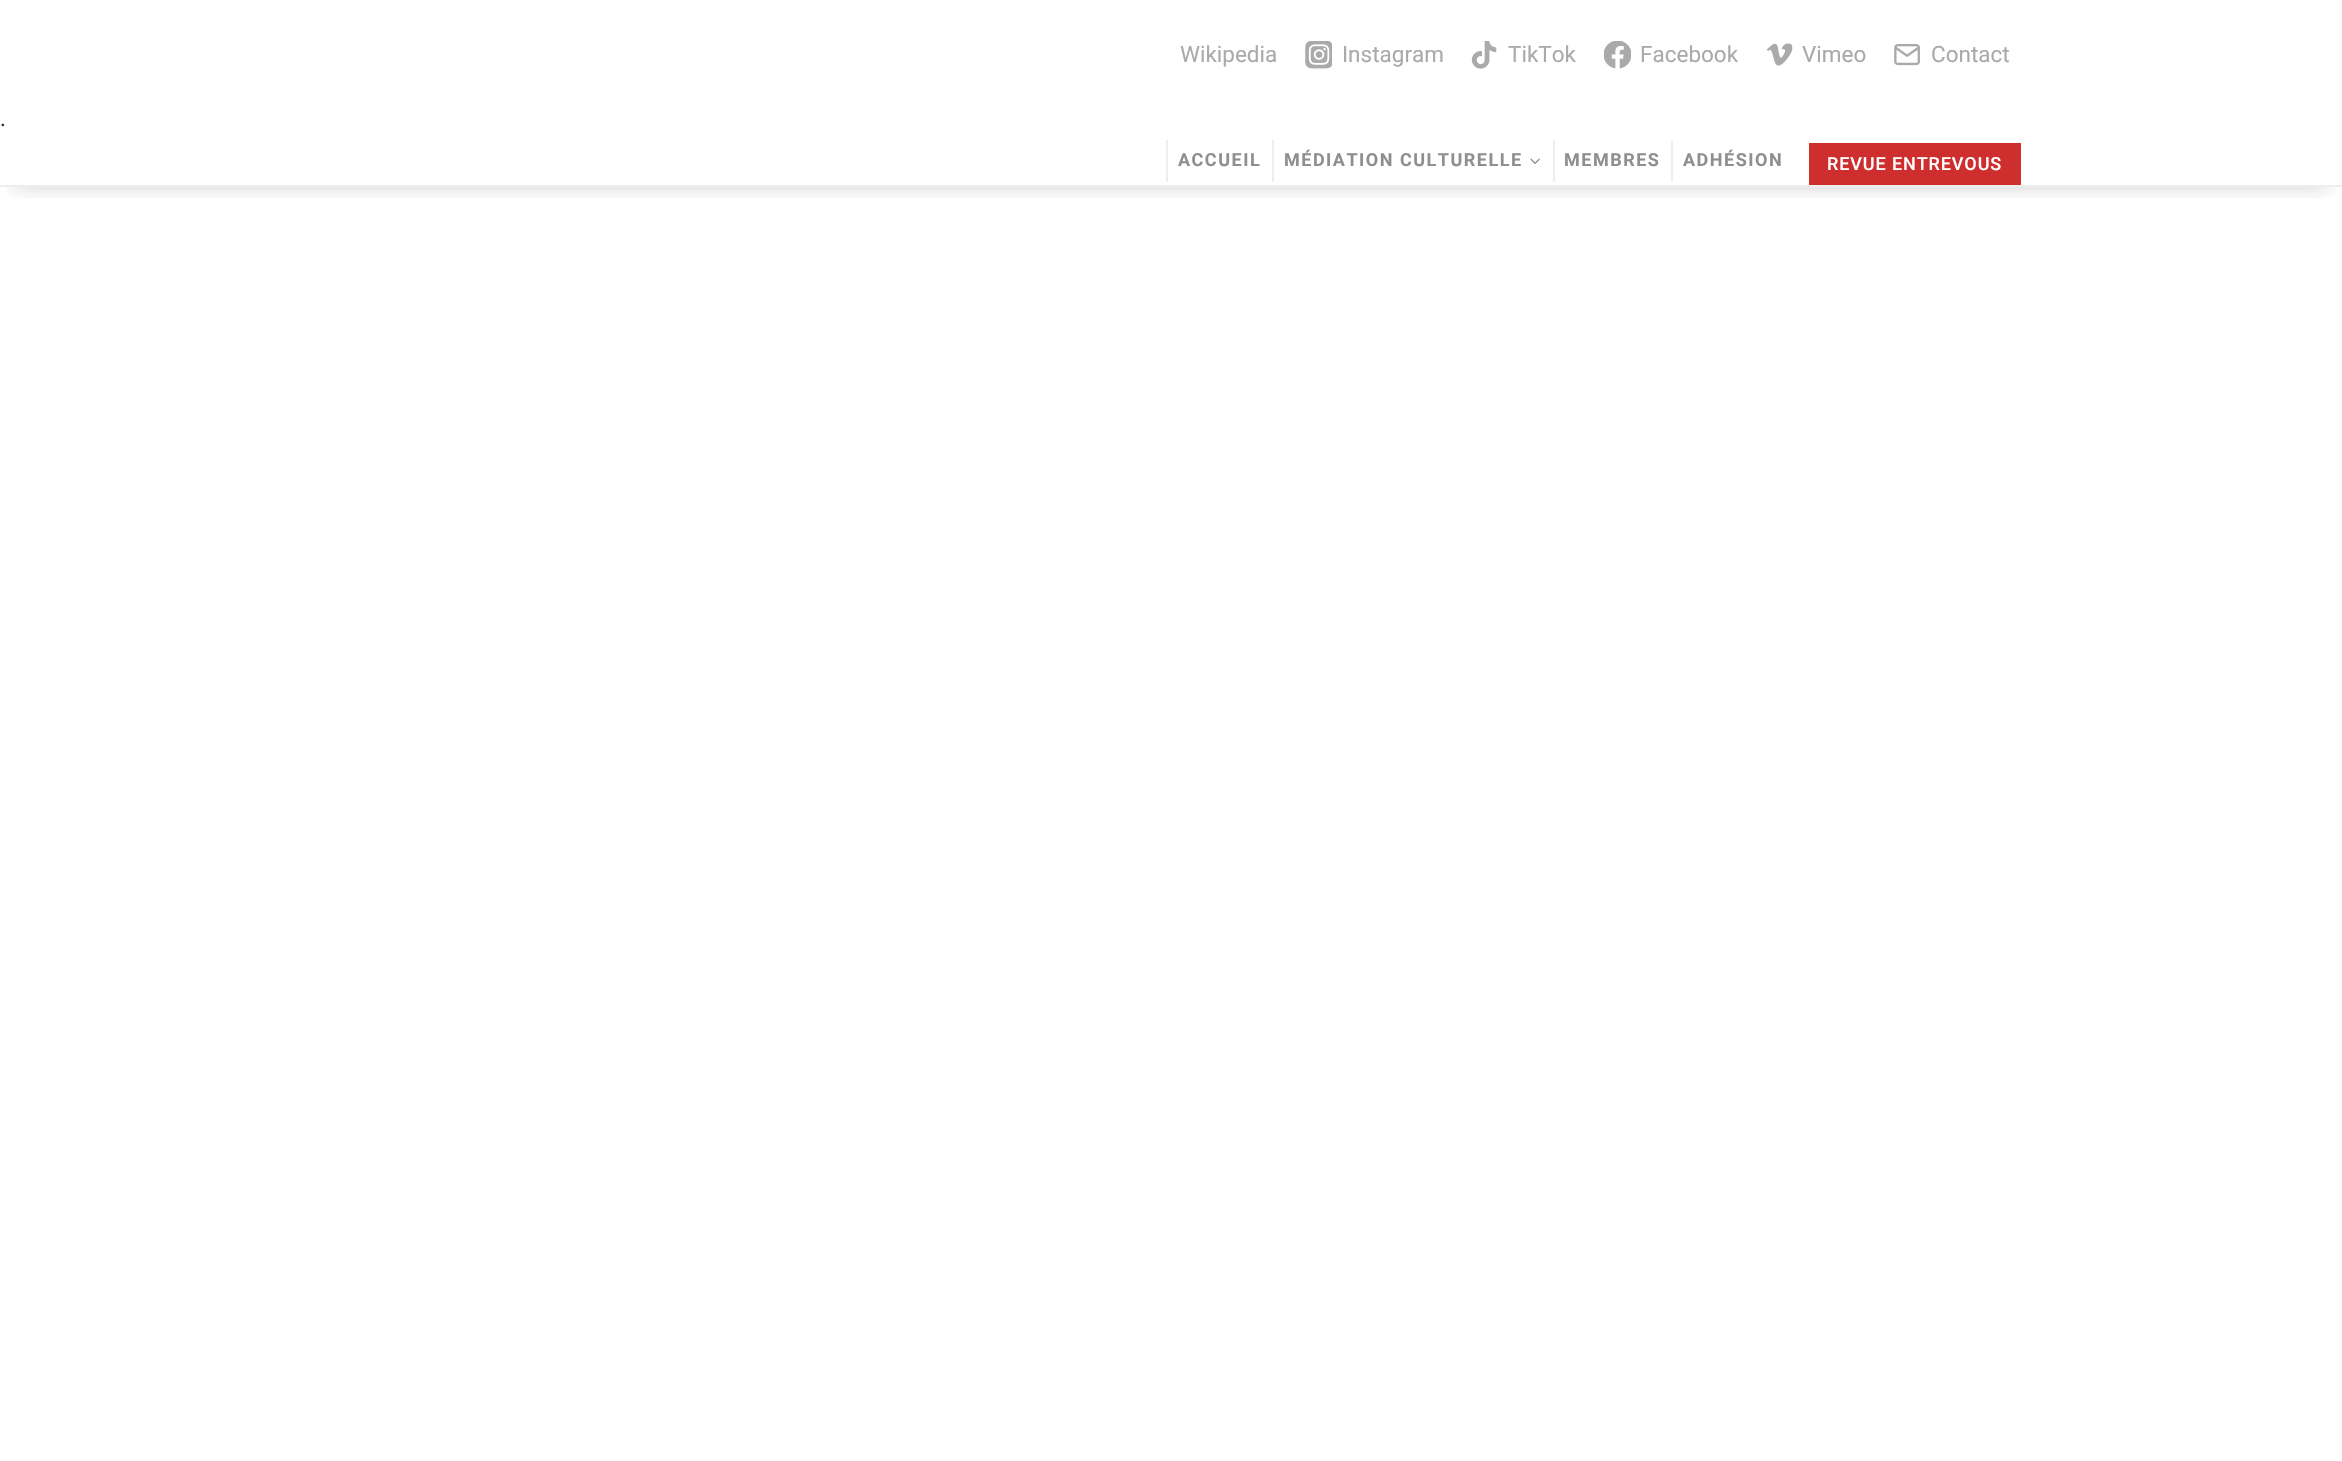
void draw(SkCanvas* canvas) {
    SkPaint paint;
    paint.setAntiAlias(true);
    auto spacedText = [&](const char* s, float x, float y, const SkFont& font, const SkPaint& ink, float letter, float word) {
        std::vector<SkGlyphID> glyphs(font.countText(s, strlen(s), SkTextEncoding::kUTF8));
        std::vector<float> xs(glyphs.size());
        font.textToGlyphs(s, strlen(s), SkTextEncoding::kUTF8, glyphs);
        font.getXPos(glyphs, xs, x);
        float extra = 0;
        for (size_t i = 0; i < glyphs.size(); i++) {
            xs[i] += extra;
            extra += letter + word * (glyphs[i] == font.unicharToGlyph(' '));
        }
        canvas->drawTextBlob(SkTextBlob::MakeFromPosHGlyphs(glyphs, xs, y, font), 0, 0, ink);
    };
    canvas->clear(0xFFFFFFFF);
    canvas->save();
    canvas->clipRect(SkRect::MakeXYWH(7, 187, 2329, 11));
    paint.setColor(0x40000000);
    paint.setMaskFilter(SkMaskFilter::MakeBlur(kNormal_SkBlurStyle, 11));
    canvas->drawRect(SkRect::MakeXYWH(15, 27, 2313, 156), paint);
    paint.setMaskFilter(nullptr);
    canvas->restore();
    SkFont font1(fontMgr->matchFamilyStyle("Roboto", SkFontStyle::Normal()), 22.5f);
    font1.setSubpixel(true);
    paint.setColor(0xFFAAAAAA);
    canvas->drawString("Wikipedia", 1180, 62, font1, paint);
    canvas->drawImageRect(SkImages::DeferredFromEncodedData(SkData::MakeFromFileName("img1.png")), SkRect::MakeXYWH(1305, 41, 27, 28), SkSamplingOptions());
    canvas->drawString("Instagram", 1342, 62, font1, paint);
    canvas->drawImageRect(SkImages::DeferredFromEncodedData(SkData::MakeFromFileName("img2.png")), SkRect::MakeXYWH(1471, 41, 26, 28), SkSamplingOptions());
    canvas->drawString("TikTok", 1508, 62, font1, paint);
    canvas->drawImageRect(SkImages::DeferredFromEncodedData(SkData::MakeFromFileName("img3.png")), SkRect::MakeXYWH(1604, 41, 27, 28), SkSamplingOptions());
    canvas->drawString("Facebook", 1640, 62, font1, paint);
    canvas->drawImageRect(SkImages::DeferredFromEncodedData(SkData::MakeFromFileName("img4.png")), SkRect::MakeXYWH(1767, 43, 26, 23), SkSamplingOptions());
    canvas->drawString("Vimeo", 1802, 62, font1, paint);
    canvas->drawImageRect(SkImages::DeferredFromEncodedData(SkData::MakeFromFileName("img5.png")), SkRect::MakeXYWH(1894, 44, 26, 22), SkSamplingOptions());
    canvas->drawString("Contact", 1931, 62, font1, paint);
    paint.setColor(0xFF252B37);
    canvas->drawString(".", 0, 126, font1, paint);
    paint.setColor(0xFFEEEEEE);
    canvas->drawRect(SkRect::MakeXYWH(0, 185, 2342, 2), paint);
    canvas->drawRect(SkRect::MakeXYWH(1166, 140, 2, 42), paint);
    SkFont font2(fontMgr->matchFamilyStyle("Roboto", SkFontStyle::Bold()), 18);
    font2.setSubpixel(true);
    paint.setColor(0xFF8F8F8F);
    spacedText("ACCUEIL", 1178, 166, font2, paint, 1.5f, 0);
    paint.setColor(0xFFEEEEEE);
    canvas->drawRect(SkRect::MakeXYWH(1272, 140, 2, 42), paint);
    paint.setColor(0xFF8F8F8F);
    spacedText("MÉDIATION CULTURELLE", 1284, 166, font2, paint, 1.5f, 0);
    canvas->drawImageRect(SkImages::DeferredFromEncodedData(SkData::MakeFromFileName("img6.png")), SkRect::MakeXYWH(1530, 158, 10, 6), SkSamplingOptions());
    paint.setColor(0xFFEEEEEE);
    canvas->drawRect(SkRect::MakeXYWH(1553, 140, 2, 42), paint);
    paint.setColor(0xFF8F8F8F);
    spacedText("MEMBRES", 1564, 166, font2, paint, 1.5f, 0);
    paint.setColor(0xFFEEEEEE);
    canvas->drawRect(SkRect::MakeXYWH(1671, 140, 2, 42), paint);
    paint.setColor(0xFF8F8F8F);
    spacedText("ADHÉSION", 1683, 166, font2, paint, 1.5f, 0);
    paint.setColor(0xFFCF2E2E);
    canvas->drawRect(SkRect::MakeXYWH(1809, 143, 212, 42), paint);
    SkFont font3(fontMgr->matchFamilyStyle("Roboto", SkFontStyle(500, SkFontStyle::kNormal_Width, SkFontStyle::kUpright_Slant)), 18);
    font3.setSubpixel(true);
    paint.setColor(0xFFFFFFFF);
    spacedText("REVUE ENTREVOUS", 1827, 170, font3, paint, 0.9f, 0);
}
